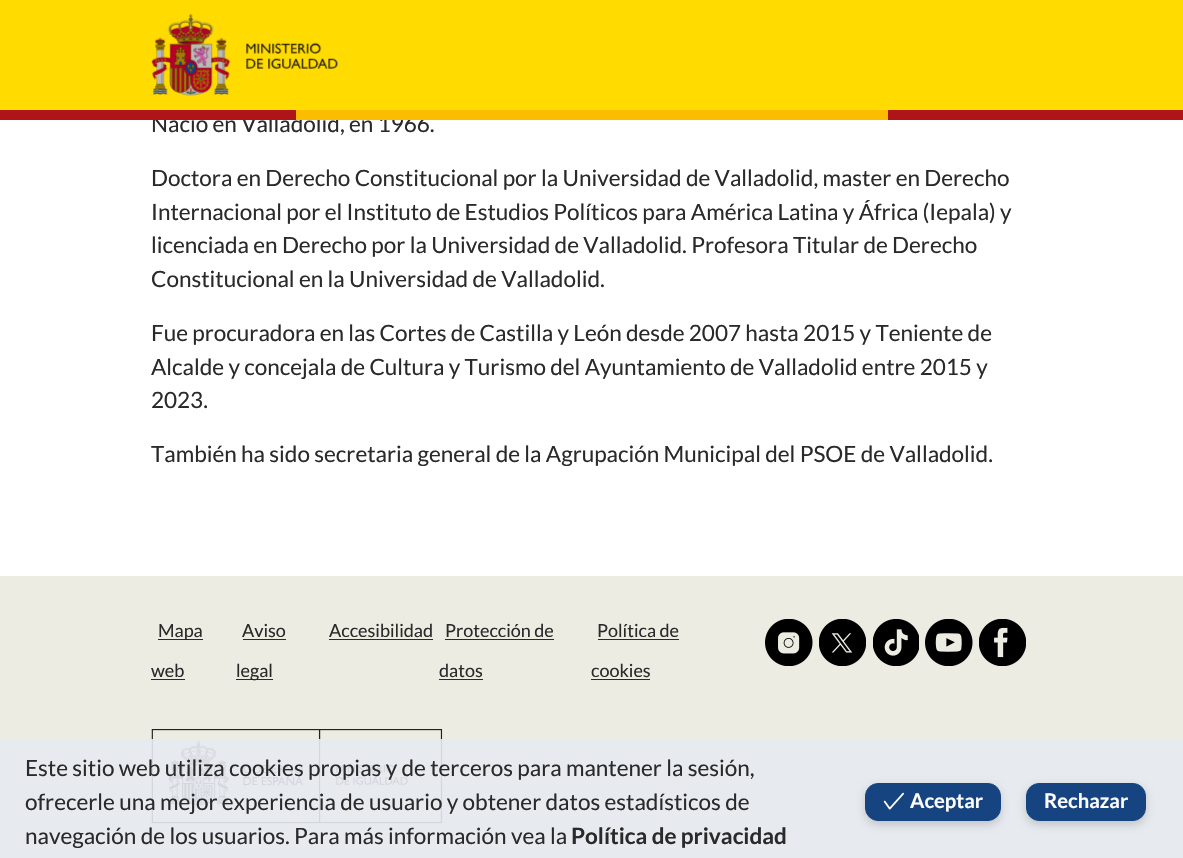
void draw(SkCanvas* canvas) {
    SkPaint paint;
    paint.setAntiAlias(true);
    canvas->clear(0xFFFFFFFF);
    paint.setColor(0xFFFFDB00);
    canvas->drawRect(SkRect::MakeXYWH(0, 0, 1183, 110), paint);
    canvas->drawImageRect(SkImages::DeferredFromEncodedData(SkData::MakeFromFileName("img1.png")), SkRect::MakeXYWH(151, 13, 188, 83), SkSamplingOptions());
    SkFont font1(fontMgr->matchFamilyStyle("Lato", SkFontStyle::Normal()), 22.5f);
    font1.setSubpixel(true);
    paint.setColor(0xFF2A2A2A);
    canvas->drawString("Nació en Valladolid, en 1966.", 151, 132, font1, paint);
    paint.setColor(0xFFAD1519);
    canvas->drawRect(SkRect::MakeXYWH(0, 110, 296, 10), paint);
    paint.setColor(0xFFFABD00);
    canvas->drawRect(SkRect::MakeXYWH(296, 110, 592, 10), paint);
    paint.setColor(0xFFAD1519);
    canvas->drawRect(SkRect::MakeXYWH(888, 110, 295, 10), paint);
    paint.setColor(0xFF2A2A2A);
    canvas->drawString("Doctora en Derecho Constitucional por la Universidad de Valladolid, master en Derecho", 151, 186, font1, paint);
    canvas->drawString("Internacional por el Instituto de Estudios Políticos para América Latina y África (Iepala) y", 151, 220, font1, paint);
    canvas->drawString("licenciada en Derecho por la Universidad de Valladolid. Profesora Titular de Derecho", 151, 253, font1, paint);
    canvas->drawString("Constitucional en la Universidad de Valladolid.", 151, 287, font1, paint);
    canvas->drawString("Fue procuradora en las Cortes de Castilla y León desde 2007 hasta 2015 y Teniente de", 151, 341, font1, paint);
    canvas->drawString("Alcalde y concejala de Cultura y Turismo del Ayuntamiento de Valladolid entre 2015 y", 151, 375, font1, paint);
    canvas->drawString("2023.", 151, 408, font1, paint);
    canvas->drawString("También ha sido secretaria general de la Agrupación Municipal del PSOE de Valladolid.", 151, 462, font1, paint);
    paint.setColor(0xFFECECE2);
    canvas->drawRect(SkRect::MakeXYWH(0, 576, 1183, 282), paint);
    paint.setColor(0xFF2A2A2A);
    canvas->drawRect(SkRect::MakeXYWH(158, 639, 45, 1), paint);
    SkFont font2(fontMgr->matchFamilyStyle("Lato", SkFontStyle::Normal()), 18);
    font2.setSubpixel(true);
    canvas->drawString("Mapa", 158, 637, font2, paint);
    canvas->drawString("web", 151, 677, font2, paint);
    canvas->drawRect(SkRect::MakeXYWH(151, 679, 34, 1), paint);
    canvas->drawString("Aviso", 242, 637, font2, paint);
    canvas->drawRect(SkRect::MakeXYWH(243, 639, 43, 1), paint);
    canvas->drawRect(SkRect::MakeXYWH(236, 679, 37, 1), paint);
    canvas->drawString("legal", 236, 677, font2, paint);
    canvas->drawString("Accesibilidad", 329, 637, font2, paint);
    canvas->drawRect(SkRect::MakeXYWH(329, 639, 104, 1), paint);
    canvas->drawString("Protección de", 445, 637, font2, paint);
    canvas->drawRect(SkRect::MakeXYWH(445, 639, 109, 1), paint);
    canvas->drawString("datos", 439, 677, font2, paint);
    canvas->drawRect(SkRect::MakeXYWH(439, 679, 44, 1), paint);
    canvas->drawString("Política de", 597, 637, font2, paint);
    canvas->drawRect(SkRect::MakeXYWH(598, 639, 81, 1), paint);
    canvas->drawString("cookies", 591, 677, font2, paint);
    canvas->drawRect(SkRect::MakeXYWH(591, 679, 59, 1), paint);
    canvas->drawImageRect(SkImages::DeferredFromEncodedData(SkData::MakeFromFileName("img2.png")), SkRect::MakeXYWH(765, 619, 48, 47), SkSamplingOptions());
    canvas->drawImageRect(SkImages::DeferredFromEncodedData(SkData::MakeFromFileName("img3.png")), SkRect::MakeXYWH(819, 619, 47, 47), SkSamplingOptions());
    canvas->drawImageRect(SkImages::DeferredFromEncodedData(SkData::MakeFromFileName("img4.png")), SkRect::MakeXYWH(873, 619, 46, 47), SkSamplingOptions());
    canvas->drawImageRect(SkImages::DeferredFromEncodedData(SkData::MakeFromFileName("img5.png")), SkRect::MakeXYWH(925, 619, 48, 47), SkSamplingOptions());
    canvas->drawImageRect(SkImages::DeferredFromEncodedData(SkData::MakeFromFileName("img6.png")), SkRect::MakeXYWH(979, 619, 47, 47), SkSamplingOptions());
    canvas->drawImageRect(SkImages::DeferredFromEncodedData(SkData::MakeFromFileName("img7.png")), SkRect::MakeXYWH(151, 729, 292, 95), SkSamplingOptions());
    paint.setColor(0xE6E5EAF1);
    canvas->drawRect(SkRect::MakeXYWH(0, 739, 1183, 119), paint);
    paint.setColor(0xFF2A2A2A);
    canvas->drawString("Este sitio web utiliza cookies propias y de terceros para mantener la sesión,", 25, 776, font1, paint);
    canvas->drawString("ofrecerle una mejor experiencia de usuario y obtener datos estadísticos de", 25, 810, font1, paint);
    canvas->drawString("navegación de los usuarios. Para más información vea la", 25, 844, font1, paint);
    SkFont font3(fontMgr->matchFamilyStyle("Lato", SkFontStyle::Bold()), 22.5f);
    font3.setSubpixel(true);
    canvas->drawString("Política de privacidad", 571, 844, font3, paint);
    paint.setColor(0x29000000);
    paint.setMaskFilter(SkMaskFilter::MakeBlur(kNormal_SkBlurStyle, 4));
    canvas->drawRoundRect(SkRect::MakeXYWH(865, 786, 136, 39), 13, 13, paint);
    paint.setMaskFilter(nullptr);
    paint.setColor(0xFF154481);
    canvas->drawRoundRect(SkRect::MakeXYWH(865.5f, 783.5f, 135, 37), 12.5f, 12.5f, paint);
    paint.setStyle(SkPaint::kStroke_Style);
    paint.setStrokeWidth(1);
    canvas->drawRoundRect(SkRect::MakeXYWH(865.5f, 783.5f, 135, 37), 12.5f, 12.5f, paint);
    canvas->drawImageRect(SkImages::DeferredFromEncodedData(SkData::MakeFromFileName("img8.png")), SkRect::MakeXYWH(883, 792, 21, 18), SkSamplingOptions());
    SkFont font4(fontMgr->matchFamilyStyle("Lato", SkFontStyle::Bold()), 20.25f);
    font4.setSubpixel(true);
    paint.setStyle(SkPaint::kFill_Style);
    paint.setColor(0xFFFFFFFF);
    canvas->drawString("Aceptar", 910, 808, font4, paint);
    paint.setColor(0x29000000);
    paint.setMaskFilter(SkMaskFilter::MakeBlur(kNormal_SkBlurStyle, 4));
    canvas->drawRoundRect(SkRect::MakeXYWH(1026, 786, 120, 39), 13, 13, paint);
    paint.setMaskFilter(nullptr);
    paint.setColor(0xFF154481);
    canvas->drawRoundRect(SkRect::MakeXYWH(1026.5f, 783.5f, 119, 37), 12.5f, 12.5f, paint);
    paint.setStyle(SkPaint::kStroke_Style);
    canvas->drawRoundRect(SkRect::MakeXYWH(1026.5f, 783.5f, 119, 37), 12.5f, 12.5f, paint);
    paint.setStyle(SkPaint::kFill_Style);
    paint.setColor(0xFFFFFFFF);
    canvas->drawString("Rechazar", 1044, 808, font4, paint);
}
